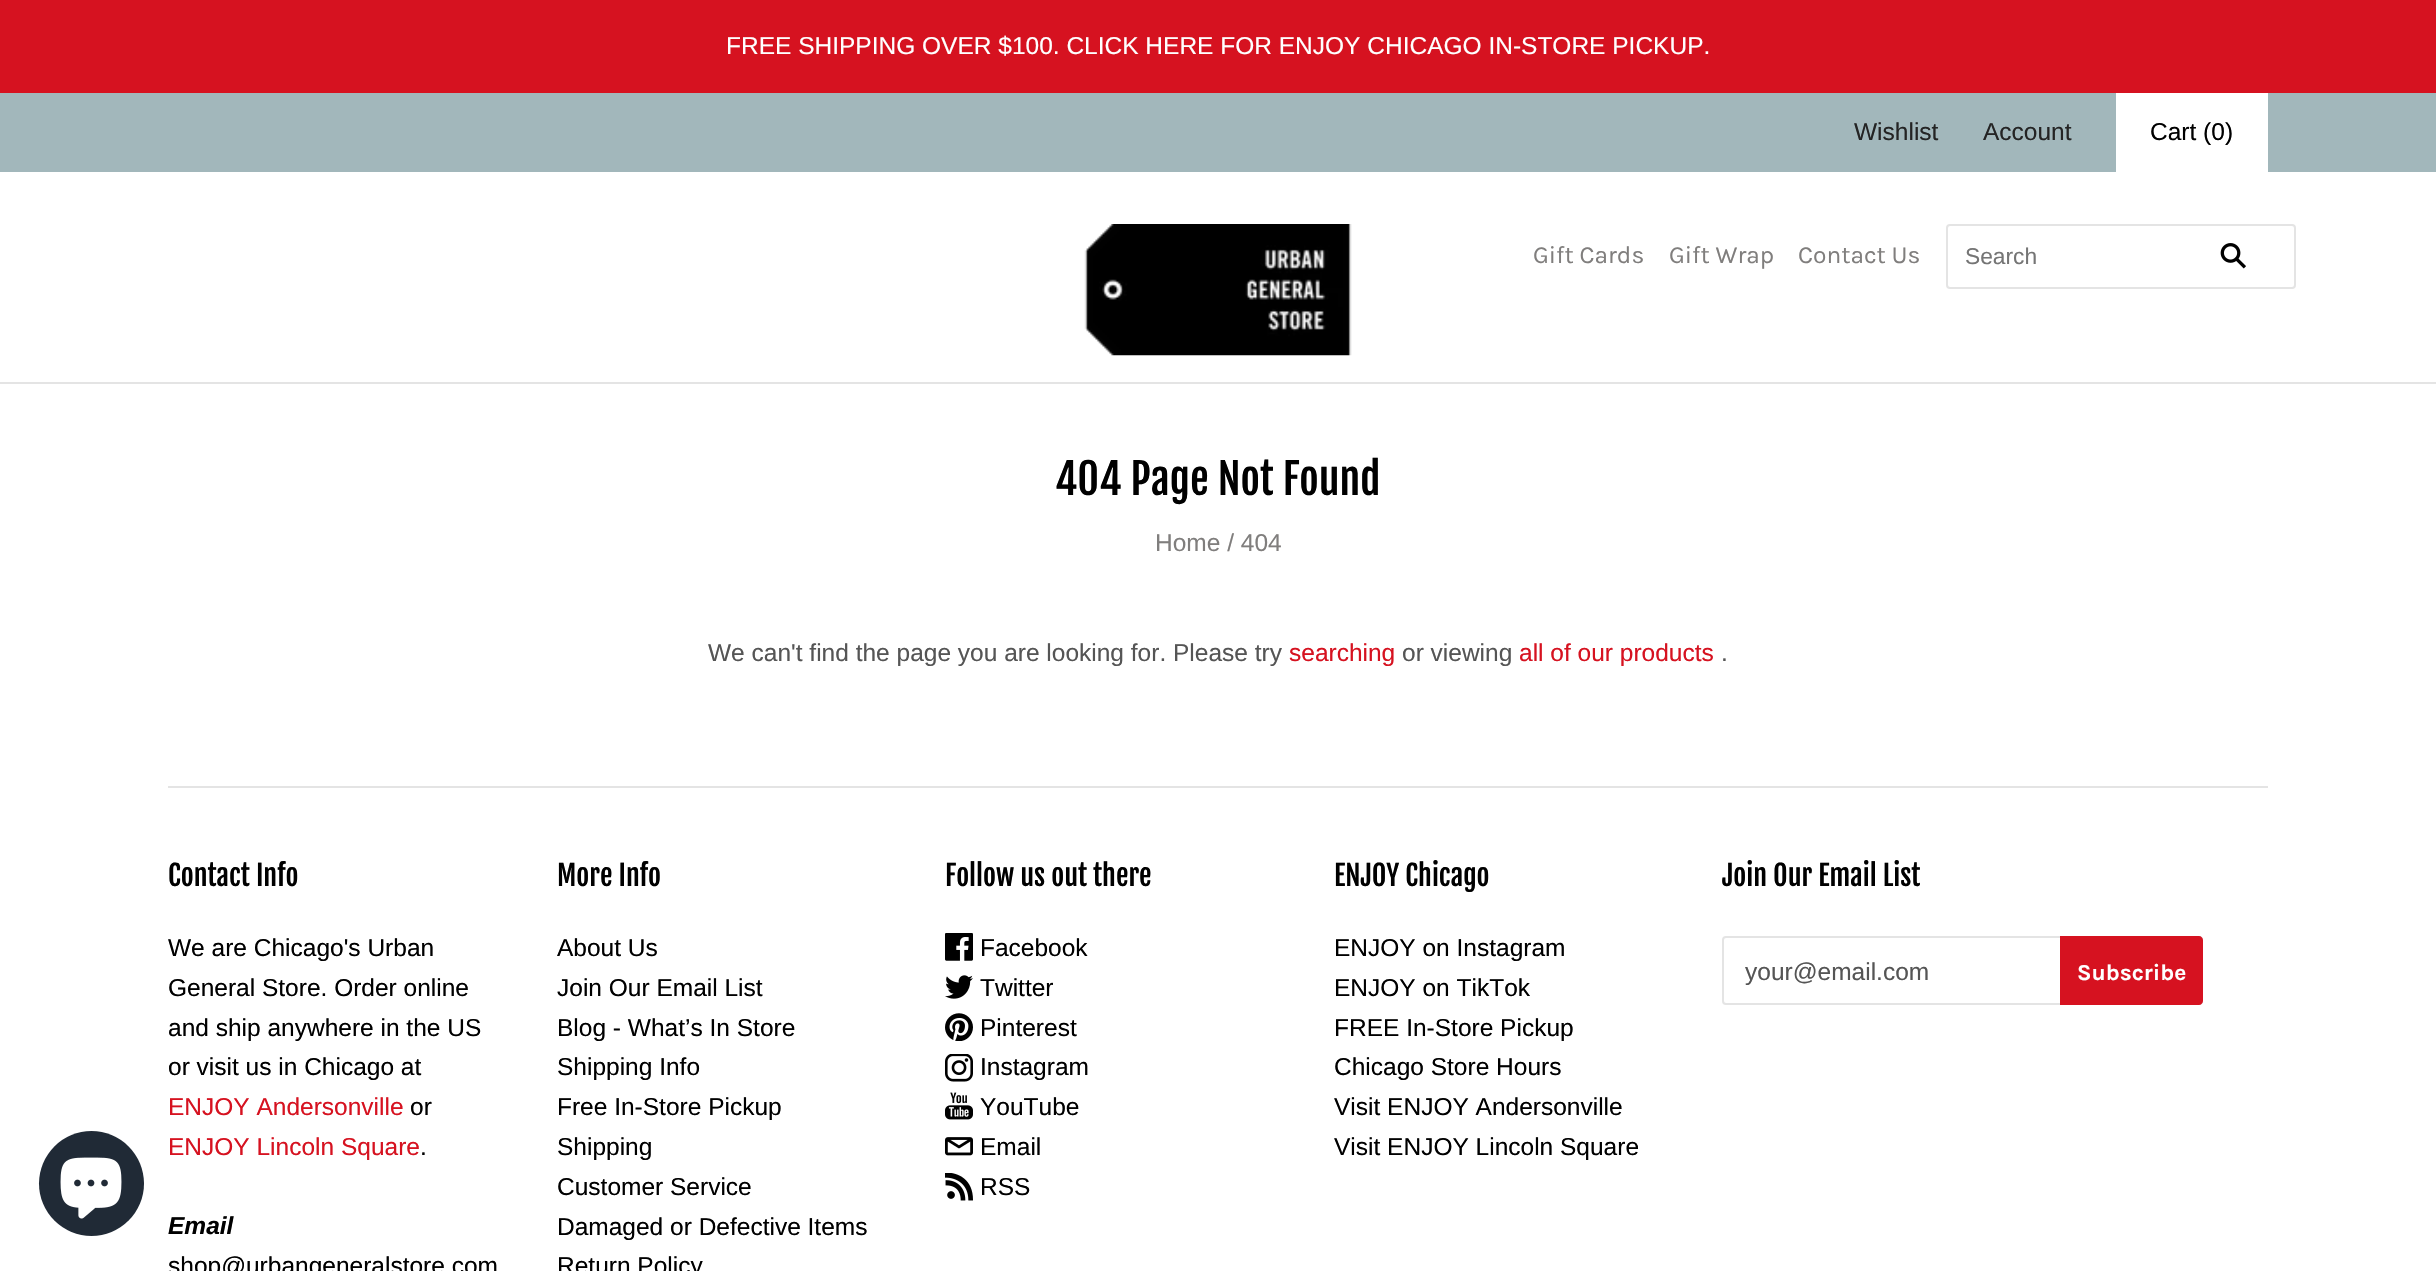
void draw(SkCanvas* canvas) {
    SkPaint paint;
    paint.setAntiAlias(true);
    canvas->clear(0xFFFFFFFF);
    paint.setColor(0xFFD61220);
    canvas->drawRect(SkRect::MakeXYWH(0, 0, 2436, 93), paint);
    SkFont font1(fontMgr->matchFamilyStyle("Liberation Sans", SkFontStyle::Normal()), 24.5f);
    font1.setSubpixel(true);
    paint.setColor(0xFFFFFFFF);
    canvas->drawString("FREE SHIPPING OVER $100. CLICK HERE FOR ENJOY CHICAGO IN-STORE PICKUP.", 726, 54, font1, paint);
    paint.setColor(0xFFE4E4E4);
    canvas->drawRect(SkRect::MakeXYWH(0, 382, 2436, 2), paint);
    paint.setColor(0xFFA2B7BB);
    canvas->drawRect(SkRect::MakeXYWH(0, 93, 2436, 79), paint);
    paint.setColor(0xFF242424);
    canvas->drawString("Wishlist", 1854, 140, font1, paint);
    canvas->drawString("Account", 1983, 140, font1, paint);
    paint.setColor(0xFFFFFFFF);
    canvas->drawRect(SkRect::MakeXYWH(2116, 93, 152, 79), paint);
    paint.setColor(0xFF000000);
    canvas->drawString("Cart (0)", 2150, 140, font1, paint);
    canvas->drawImageRect(SkImages::DeferredFromEncodedData(SkData::MakeFromFileName("img1.png")), SkRect::MakeXYWH(1084, 224, 268, 132), SkSamplingOptions());
    SkFont font2(fontMgr->matchFamilyStyle("Karla", SkFontStyle::Normal()), 24.5f);
    font2.setSubpixel(true);
    paint.setColor(0xFF807E7D);
    canvas->drawString("Gift Cards", 1533, 263, font2, paint);
    canvas->drawString("Gift Wrap", 1669, 263, font2, paint);
    canvas->drawString("Contact Us", 1798, 263, font2, paint);
    paint.setStyle(SkPaint::kStroke_Style);
    paint.setStrokeWidth(2);
    paint.setColor(0xFFE4E4E4);
    canvas->drawRoundRect(SkRect::MakeXYWH(1947, 225, 348, 63), 3, 3, paint);
    SkFont font3(fontMgr->matchFamilyStyle("Liberation Sans", SkFontStyle::Normal()), 22.75f);
    font3.setSubpixel(true);
    paint.setStyle(SkPaint::kFill_Style);
    paint.setColor(0xFF757575);
    canvas->drawString("Search", 1965, 264, font3, paint);
    canvas->drawImageRect(SkImages::DeferredFromEncodedData(SkData::MakeFromFileName("img2.png")), SkRect::MakeXYWH(2220, 243, 26, 26), SkSamplingOptions());
    SkFont font4(fontMgr->matchFamilyStyle("Fjalla One", SkFontStyle::Normal()), 42);
    font4.setSubpixel(true);
    paint.setColor(0xFF000000);
    canvas->drawString("404 Page Not Found", 1055, 495, font4, paint);
    paint.setColor(0xFF807E7D);
    canvas->drawString("Home / 404", 1155, 551, font1, paint);
    paint.setColor(0xFF555555);
    canvas->drawString("We can't find the page you are looking for. Please try", 708, 661, font1, paint);
    paint.setColor(0xFFD61220);
    canvas->drawString("searching", 1289, 661, font1, paint);
    paint.setColor(0xFF555555);
    canvas->drawString("or viewing", 1402, 661, font1, paint);
    paint.setColor(0xFFD61220);
    canvas->drawString("all of our products", 1519, 661, font1, paint);
    paint.setColor(0xFF555555);
    canvas->drawString(".", 1721, 661, font1, paint);
    paint.setColor(0xFF202A36);
    canvas->drawCircle(91.5f, 1183.5f, 52.5f, paint);
    canvas->drawImageRect(SkImages::DeferredFromEncodedData(SkData::MakeFromFileName("img3.png")), SkRect::MakeXYWH(60, 1157, 62, 62), SkSamplingOptions());
    paint.setColor(0xFFE4E4E4);
    canvas->drawRect(SkRect::MakeXYWH(168, 786, 2100, 2), paint);
    SkFont font5(fontMgr->matchFamilyStyle("Fjalla One", SkFontStyle::Normal()), 28);
    font5.setSubpixel(true);
    paint.setColor(0xFF000000);
    canvas->drawString("Contact Info", 168, 886, font5, paint);
    canvas->drawString("We are Chicago's Urban", 168, 956, font1, paint);
    canvas->drawString("General Store. Order online", 168, 996, font1, paint);
    canvas->drawString("and ship anywhere in the US", 168, 1036, font1, paint);
    canvas->drawString("or visit us in Chicago at", 168, 1075, font1, paint);
    paint.setColor(0xFFD61220);
    canvas->drawString("ENJOY Andersonville", 168, 1115, font1, paint);
    paint.setColor(0xFF000000);
    canvas->drawString("or", 410, 1115, font1, paint);
    paint.setColor(0xFFD61220);
    canvas->drawString("ENJOY Lincoln Square", 168, 1155, font1, paint);
    paint.setColor(0xFF000000);
    canvas->drawString(".", 420, 1155, font1, paint);
    SkFont font6(fontMgr->matchFamilyStyle("Liberation Sans", SkFontStyle::BoldItalic()), 24.5f);
    font6.setSubpixel(true);
    canvas->drawString("Email", 168, 1234, font6, paint);
    canvas->drawString("shop@urbangeneralstore.com", 168, 1274, font1, paint);
    canvas->drawString("More Info", 557, 886, font5, paint);
    canvas->drawString("About Us", 557, 956, font1, paint);
    canvas->drawString("Join Our Email List", 557, 996, font1, paint);
    canvas->drawString("Blog - What’s In Store", 557, 1036, font1, paint);
    canvas->drawString("Shipping Info", 557, 1075, font1, paint);
    canvas->drawString("Free In-Store Pickup", 557, 1115, font1, paint);
    canvas->drawString("Shipping", 557, 1155, font1, paint);
    canvas->drawString("Customer Service", 557, 1195, font1, paint);
    canvas->drawString("Damaged or Defective Items", 557, 1235, font1, paint);
    canvas->drawString("Return Policy", 557, 1274, font1, paint);
    canvas->drawString("Follow us out there", 945, 886, font5, paint);
    canvas->drawImageRect(SkImages::DeferredFromEncodedData(SkData::MakeFromFileName("img4.png")), SkRect::MakeXYWH(945, 933, 28, 28), SkSamplingOptions());
    canvas->drawString("Facebook", 980, 956, font1, paint);
    canvas->drawImageRect(SkImages::DeferredFromEncodedData(SkData::MakeFromFileName("img5.png")), SkRect::MakeXYWH(945, 975, 28, 24), SkSamplingOptions());
    canvas->drawString("Twitter", 980, 996, font1, paint);
    canvas->drawImageRect(SkImages::DeferredFromEncodedData(SkData::MakeFromFileName("img6.png")), SkRect::MakeXYWH(945, 1013, 28, 28), SkSamplingOptions());
    canvas->drawString("Pinterest", 980, 1036, font1, paint);
    canvas->drawImageRect(SkImages::DeferredFromEncodedData(SkData::MakeFromFileName("img7.png")), SkRect::MakeXYWH(945, 1054, 28, 28), SkSamplingOptions());
    canvas->drawString("Instagram", 980, 1075, font1, paint);
    canvas->drawImageRect(SkImages::DeferredFromEncodedData(SkData::MakeFromFileName("img8.png")), SkRect::MakeXYWH(945, 1092, 28, 28), SkSamplingOptions());
    canvas->drawString("YouTube", 980, 1115, font1, paint);
    canvas->drawImageRect(SkImages::DeferredFromEncodedData(SkData::MakeFromFileName("img9.png")), SkRect::MakeXYWH(945, 1137, 28, 19), SkSamplingOptions());
    canvas->drawString("Email", 980, 1155, font1, paint);
    canvas->drawImageRect(SkImages::DeferredFromEncodedData(SkData::MakeFromFileName("img10.png")), SkRect::MakeXYWH(945, 1173, 28, 28), SkSamplingOptions());
    canvas->drawString("RSS", 980, 1195, font1, paint);
    canvas->drawString("ENJOY Chicago", 1334, 886, font5, paint);
    canvas->drawString("ENJOY on Instagram", 1334, 956, font1, paint);
    canvas->drawString("ENJOY on TikTok", 1334, 996, font1, paint);
    canvas->drawString("FREE In-Store Pickup", 1334, 1036, font1, paint);
    canvas->drawString("Chicago Store Hours", 1334, 1075, font1, paint);
    canvas->drawString("Visit ENJOY Andersonville", 1334, 1115, font1, paint);
    canvas->drawString("Visit ENJOY Lincoln Square", 1334, 1155, font1, paint);
    canvas->drawString("Join Our Email List", 1722, 886, font5, paint);
    paint.setStyle(SkPaint::kStroke_Style);
    paint.setColor(0xFFE4E4E4);
    canvas->drawRoundRect(SkRect::MakeXYWH(1723, 937, 479, 67), 3, 3, paint);
    paint.setStyle(SkPaint::kFill_Style);
    paint.setColor(0xFF555555);
    canvas->drawString("your@email.com", 1745, 980, font1, paint);
    paint.setColor(0xFFD61220);
    canvas->drawPath(SkPathBuilder().moveTo(2060, 936).lineTo(2199, 936).cubicTo(2201, 936, 2203, 938, 2203, 940).lineTo(2203, 1001).cubicTo(2203, 1003, 2201, 1005, 2199, 1005).lineTo(2060, 1005).close().detach(), paint);
    SkFont font7(fontMgr->matchFamilyStyle("Karla", SkFontStyle::Bold()), 22.75f);
    font7.setSubpixel(true);
    paint.setColor(0xFFFFFFFF);
    canvas->drawString("Subscribe", 2077, 980, font7, paint);
}
